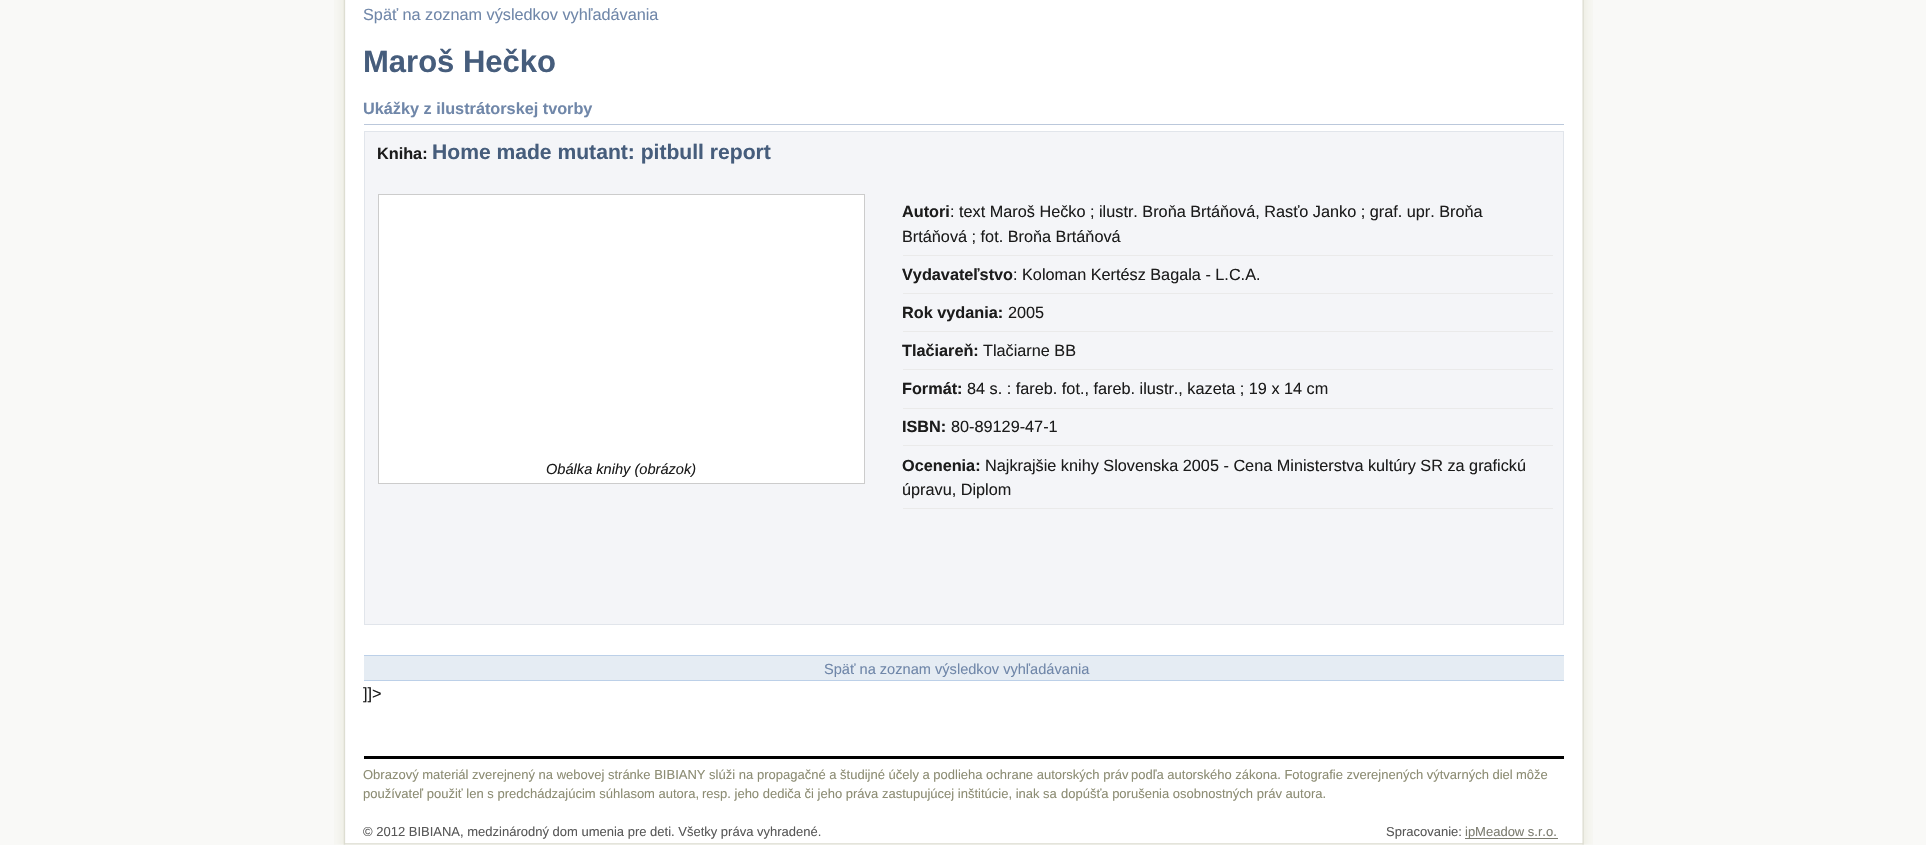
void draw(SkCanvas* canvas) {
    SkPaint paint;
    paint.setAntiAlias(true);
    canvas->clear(0xFFF9F9F7);
    canvas->drawImageRect(SkImages::DeferredFromEncodedData(SkData::MakeFromFileName("img1.png")), SkRect::MakeXYWH(334, 0, 1259, 845), SkSamplingOptions());
    SkFont font1(fontMgr->matchFamilyStyle("Liberation Sans", SkFontStyle::Normal()), 16.25f);
    font1.setSubpixel(true);
    paint.setColor(0xFF7087A9);
    canvas->drawString("Späť na zoznam výsledkov vyhľadávania", 363, 20, font1, paint);
    SkFont font2(fontMgr->matchFamilyStyle("Liberation Sans", SkFontStyle::Bold()), 31);
    font2.setSubpixel(true);
    paint.setColor(0xFF465D7C);
    canvas->drawString("Maroš Hečko", 363, 72, font2, paint);
    paint.setColor(0xFFBBC8DB);
    canvas->drawRect(SkRect::MakeXYWH(364, 124, 1200, 1), paint);
    SkFont font3(fontMgr->matchFamilyStyle("Liberation Sans", SkFontStyle::Bold()), 16.25f);
    font3.setSubpixel(true);
    paint.setColor(0xFF7087A9);
    canvas->drawString("Ukážky z ilustrátorskej tvorby", 363, 114, font3, paint);
    paint.setColor(0xFFF4F5F8);
    canvas->drawRect(SkRect::MakeXYWH(364.5f, 131.5f, 1199, 493), paint);
    paint.setStyle(SkPaint::kStroke_Style);
    paint.setStrokeWidth(1);
    paint.setColor(0xFFE1E5EB);
    canvas->drawRect(SkRect::MakeXYWH(364.5f, 131.5f, 1199, 493), paint);
    paint.setStyle(SkPaint::kFill_Style);
    paint.setColor(0xFF1C1C1C);
    canvas->drawString("Kniha:", 377, 159, font3, paint);
    SkFont font4(fontMgr->matchFamilyStyle("Liberation Sans", SkFontStyle::Bold()), 21.1f);
    font4.setSubpixel(true);
    paint.setColor(0xFF465D7C);
    canvas->drawString("Home made mutant: pitbull report", 432, 159, font4, paint);
    paint.setColor(0xFFFFFFFF);
    canvas->drawRect(SkRect::MakeXYWH(378.5f, 194.5f, 486, 289), paint);
    paint.setStyle(SkPaint::kStroke_Style);
    paint.setColor(0xFFCCCCCC);
    canvas->drawRect(SkRect::MakeXYWH(378.5f, 194.5f, 486, 289), paint);
    SkFont font5(fontMgr->matchFamilyStyle("Liberation Sans", SkFontStyle::Italic()), 14.6f);
    font5.setSubpixel(true);
    paint.setStyle(SkPaint::kFill_Style);
    paint.setColor(0xFF1C1C1C);
    canvas->drawString("Obálka knihy (obrázok)", 546, 474, font5, paint);
    paint.setColor(0xFFEAEAEA);
    canvas->drawRect(SkRect::MakeXYWH(903, 255, 650, 1), paint);
    paint.setColor(0xFF1C1C1C);
    canvas->drawString("Autori", 902, 217, font3, paint);
    canvas->drawString(": text Maroš Hečko ; ilustr. Broňa Brtáňová, Rasťo Janko ; graf. upr. Broňa", 950, 217, font1, paint);
    canvas->drawString("Brtáňová ; fot. Broňa Brtáňová", 902, 242, font1, paint);
    paint.setColor(0xFFEAEAEA);
    canvas->drawRect(SkRect::MakeXYWH(903, 293, 650, 1), paint);
    paint.setColor(0xFF1C1C1C);
    canvas->drawString("Vydavateľstvo", 902, 280, font3, paint);
    canvas->drawString(": Koloman Kertész Bagala - L.C.A.", 1013, 280, font1, paint);
    paint.setColor(0xFFEAEAEA);
    canvas->drawRect(SkRect::MakeXYWH(903, 331, 650, 1), paint);
    paint.setColor(0xFF1C1C1C);
    canvas->drawString("Rok vydania:", 902, 318, font3, paint);
    canvas->drawString("2005", 1008, 318, font1, paint);
    paint.setColor(0xFFEAEAEA);
    canvas->drawRect(SkRect::MakeXYWH(903, 369, 650, 1), paint);
    paint.setColor(0xFF1C1C1C);
    canvas->drawString("Tlačiareň:", 902, 356, font3, paint);
    canvas->drawString("Tlačiarne BB", 983, 356, font1, paint);
    paint.setColor(0xFFEAEAEA);
    canvas->drawRect(SkRect::MakeXYWH(903, 408, 650, 1), paint);
    paint.setColor(0xFF1C1C1C);
    canvas->drawString("Formát:", 902, 394, font3, paint);
    canvas->drawString("84 s. : fareb. fot., fareb. ilustr., kazeta ; 19 x 14 cm", 967, 394, font1, paint);
    paint.setColor(0xFFEAEAEA);
    canvas->drawRect(SkRect::MakeXYWH(903, 445, 650, 1), paint);
    paint.setColor(0xFF1C1C1C);
    canvas->drawString("ISBN:", 902, 432, font3, paint);
    canvas->drawString("80-89129-47-1", 951, 432, font1, paint);
    paint.setColor(0xFFEAEAEA);
    canvas->drawRect(SkRect::MakeXYWH(903, 508, 650, 1), paint);
    paint.setColor(0xFF1C1C1C);
    canvas->drawString("Ocenenia:", 902, 471, font3, paint);
    canvas->drawString("Najkrajšie knihy Slovenska 2005 - Cena Ministerstva kultúry SR za grafickú", 985, 471, font1, paint);
    canvas->drawString("úpravu, Diplom", 902, 495, font1, paint);
    paint.setColor(0xFFE5ECF3);
    canvas->drawRect(SkRect::MakeXYWH(364, 656, 1200, 24), paint);
    paint.setColor(0xFFBCD0E8);
    canvas->drawRect(SkRect::MakeXYWH(364, 655, 1200, 1), paint);
    canvas->drawRect(SkRect::MakeXYWH(364, 680, 1200, 1), paint);
    SkFont font6(fontMgr->matchFamilyStyle("Liberation Sans", SkFontStyle::Normal()), 14.6f);
    font6.setSubpixel(true);
    paint.setColor(0xFF7087A9);
    canvas->drawString("Späť na zoznam výsledkov vyhľadávania", 824, 674, font6, paint);
    paint.setColor(0xFF1C1C1C);
    canvas->drawString("]]>", 363, 699, font1, paint);
    paint.setColor(0xFF000000);
    canvas->drawRect(SkRect::MakeXYWH(364, 756, 1200, 3), paint);
    SkFont font7(fontMgr->matchFamilyStyle("Liberation Sans", SkFontStyle::Normal()), 13);
    font7.setSubpixel(true);
    paint.setColor(0xFF8C8C73);
    canvas->drawString("Obrazový materiál zverejnený na webovej stránke BIBIANY slúži na", 363, 779, font7, paint);
    canvas->drawString("propagačné a študijné účely a podlieha ochrane autorských práv", 757, 779, font7, paint);
    canvas->drawString("podľa autorského zákona. Fotografie zverejnených výtvarných diel", 1131, 779, font7, paint);
    canvas->drawString("môže", 1516, 779, font7, paint);
    canvas->drawString("používateľ použiť len s predchádzajúcim súhlasom autora,", 363, 798, font7, paint);
    canvas->drawString("resp. jeho dediča či jeho práva zastupujúcej inštitúcie, inak sa", 702, 798, font7, paint);
    canvas->drawString("dopúšťa porušenia osobnostných práv autora.", 1061, 798, font7, paint);
    paint.setColor(0xFF585858);
    canvas->drawString("© 2012 BIBIANA, medzinárodný dom umenia pre deti. Všetky práva vyhradené.", 363, 836, font7, paint);
    canvas->drawString("Spracovanie:", 1386, 836, font7, paint);
    paint.setColor(0xFF7D7D71);
    canvas->drawRect(SkRect::MakeXYWH(1465, 838, 93, 1), paint);
    canvas->drawString("ipMeadow s.r.o.", 1465, 836, font7, paint);
    canvas->drawImageRect(SkImages::DeferredFromEncodedData(SkData::MakeFromFileName("img2.png")), SkRect::MakeXYWH(343, 843, 1241, 2), SkSamplingOptions());
}
